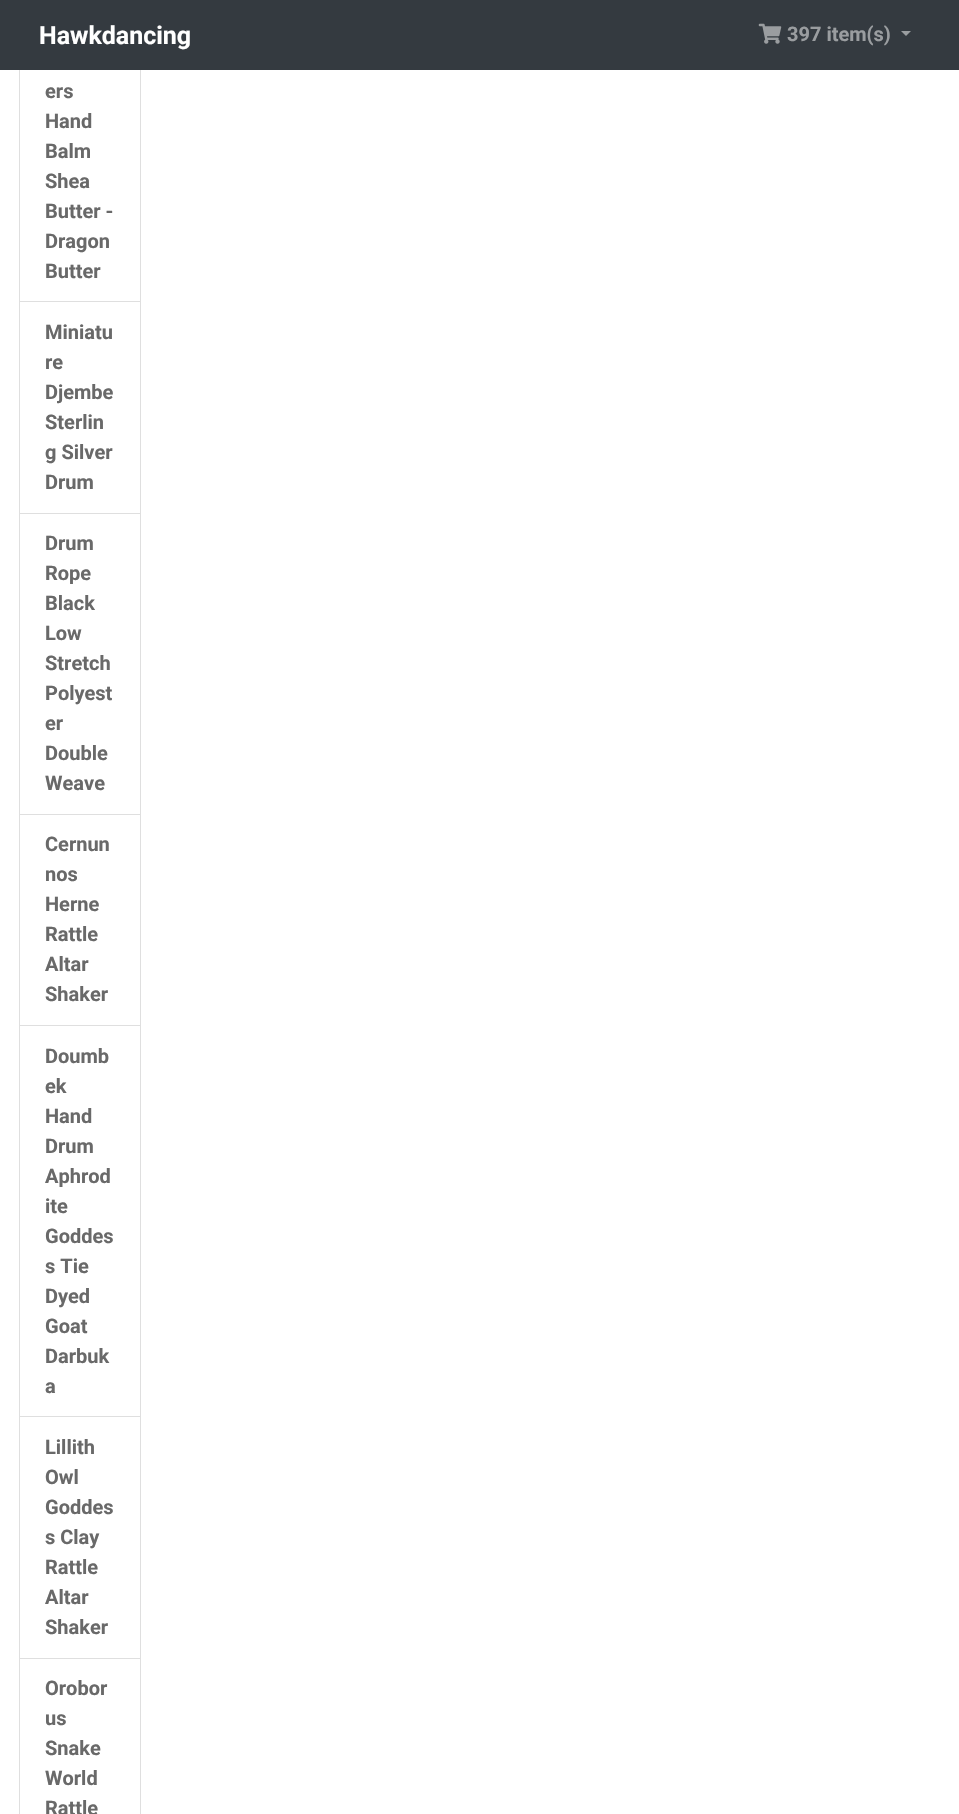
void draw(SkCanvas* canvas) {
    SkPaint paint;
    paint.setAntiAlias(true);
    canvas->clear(0xFFFFFFFF);
    paint.setStyle(SkPaint::kStroke_Style);
    paint.setStrokeWidth(1);
    paint.setColor(0xFFDFDFDF);
    canvas->drawRect(SkRect::MakeXYWH(19.5f, -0.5f, 121, 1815), paint);
    paint.setStyle(SkPaint::kFill_Style);
    paint.setColor(0xFF343A40);
    canvas->drawRect(SkRect::MakeXYWH(0, 0, 959, 70), paint);
    SkFont font1(fontMgr->matchFamilyStyle("Roboto", SkFontStyle::Bold()), 25);
    font1.setSubpixel(true);
    paint.setColor(0xFFFFFFFF);
    canvas->drawString("Hawkdancing", 39, 44, font1, paint);
    canvas->drawImageRect(SkImages::DeferredFromEncodedData(SkData::MakeFromFileName("img1.png")), SkRect::MakeXYWH(758, 23, 24, 21), SkSamplingOptions());
    SkFont font2(fontMgr->matchFamilyStyle("Roboto", SkFontStyle::Bold()), 20);
    font2.setSubpixel(true);
    paint.setColor(0xFF9A9DA0);
    canvas->drawString("397 item(s)", 787, 41, font2, paint);
    canvas->drawPath(SkPathBuilder().moveTo(901, 31).lineTo(911, 31).lineTo(906, 36).close().detach(), paint);
    paint.setColor(0xFF696969);
    canvas->drawString("ers", 45, 98, font2, paint);
    canvas->drawString("Hand", 45, 128, font2, paint);
    canvas->drawString("Balm", 45, 158, font2, paint);
    canvas->drawString("Shea", 45, 188, font2, paint);
    canvas->drawString("Butter -", 45, 218, font2, paint);
    canvas->drawString("Dragon", 45, 248, font2, paint);
    canvas->drawString("Butter", 45, 278, font2, paint);
    paint.setColor(0xFFDFDFDF);
    canvas->drawRect(SkRect::MakeXYWH(20, 301, 120, 1), paint);
    paint.setColor(0xFF696969);
    canvas->drawString("Miniatu", 45, 339, font2, paint);
    canvas->drawString("re", 45, 369, font2, paint);
    canvas->drawString("Djembe", 45, 399, font2, paint);
    canvas->drawString("Sterlin", 45, 429, font2, paint);
    canvas->drawString("g Silver", 45, 459, font2, paint);
    canvas->drawString("Drum", 45, 489, font2, paint);
    paint.setColor(0xFFDFDFDF);
    canvas->drawRect(SkRect::MakeXYWH(20, 513, 120, 1), paint);
    paint.setColor(0xFF696969);
    canvas->drawString("Drum", 45, 550, font2, paint);
    canvas->drawString("Rope", 45, 580, font2, paint);
    canvas->drawString("Black", 45, 610, font2, paint);
    canvas->drawString("Low", 45, 640, font2, paint);
    canvas->drawString("Stretch", 45, 670, font2, paint);
    canvas->drawString("Polyest", 45, 700, font2, paint);
    canvas->drawString("er", 45, 730, font2, paint);
    canvas->drawString("Double", 45, 760, font2, paint);
    canvas->drawString("Weave", 45, 790, font2, paint);
    paint.setColor(0xFFDFDFDF);
    canvas->drawRect(SkRect::MakeXYWH(20, 814, 120, 1), paint);
    paint.setColor(0xFF696969);
    canvas->drawString("Cernun", 45, 851, font2, paint);
    canvas->drawString("nos", 45, 881, font2, paint);
    canvas->drawString("Herne", 45, 911, font2, paint);
    canvas->drawString("Rattle", 45, 941, font2, paint);
    canvas->drawString("Altar", 45, 971, font2, paint);
    canvas->drawString("Shaker", 45, 1001, font2, paint);
    paint.setColor(0xFFDFDFDF);
    canvas->drawRect(SkRect::MakeXYWH(20, 1025, 120, 1), paint);
    paint.setColor(0xFF696969);
    canvas->drawString("Doumb", 45, 1063, font2, paint);
    canvas->drawString("ek", 45, 1093, font2, paint);
    canvas->drawString("Hand", 45, 1123, font2, paint);
    canvas->drawString("Drum", 45, 1153, font2, paint);
    canvas->drawString("Aphrod", 45, 1183, font2, paint);
    canvas->drawString("ite", 45, 1213, font2, paint);
    canvas->drawString("Goddes", 45, 1243, font2, paint);
    canvas->drawString("s Tie", 45, 1273, font2, paint);
    canvas->drawString("Dyed", 45, 1303, font2, paint);
    canvas->drawString("Goat", 45, 1333, font2, paint);
    canvas->drawString("Darbuk", 45, 1363, font2, paint);
    canvas->drawString("a", 45, 1393, font2, paint);
    paint.setColor(0xFFDFDFDF);
    canvas->drawRect(SkRect::MakeXYWH(20, 1416, 120, 1), paint);
    paint.setColor(0xFF696969);
    canvas->drawString("Lillith", 45, 1454, font2, paint);
    canvas->drawString("Owl", 45, 1484, font2, paint);
    canvas->drawString("Goddes", 45, 1514, font2, paint);
    canvas->drawString("s Clay", 45, 1544, font2, paint);
    canvas->drawString("Rattle", 45, 1574, font2, paint);
    canvas->drawString("Altar", 45, 1604, font2, paint);
    canvas->drawString("Shaker", 45, 1634, font2, paint);
    paint.setColor(0xFFDFDFDF);
    canvas->drawRect(SkRect::MakeXYWH(20, 1658, 120, 1), paint);
    paint.setColor(0xFF696969);
    canvas->drawString("Orobor", 45, 1695, font2, paint);
    canvas->drawString("us", 45, 1725, font2, paint);
    canvas->drawString("Snake", 45, 1755, font2, paint);
    canvas->drawString("World", 45, 1785, font2, paint);
    canvas->drawString("Rattle", 45, 1815, font2, paint);
}
